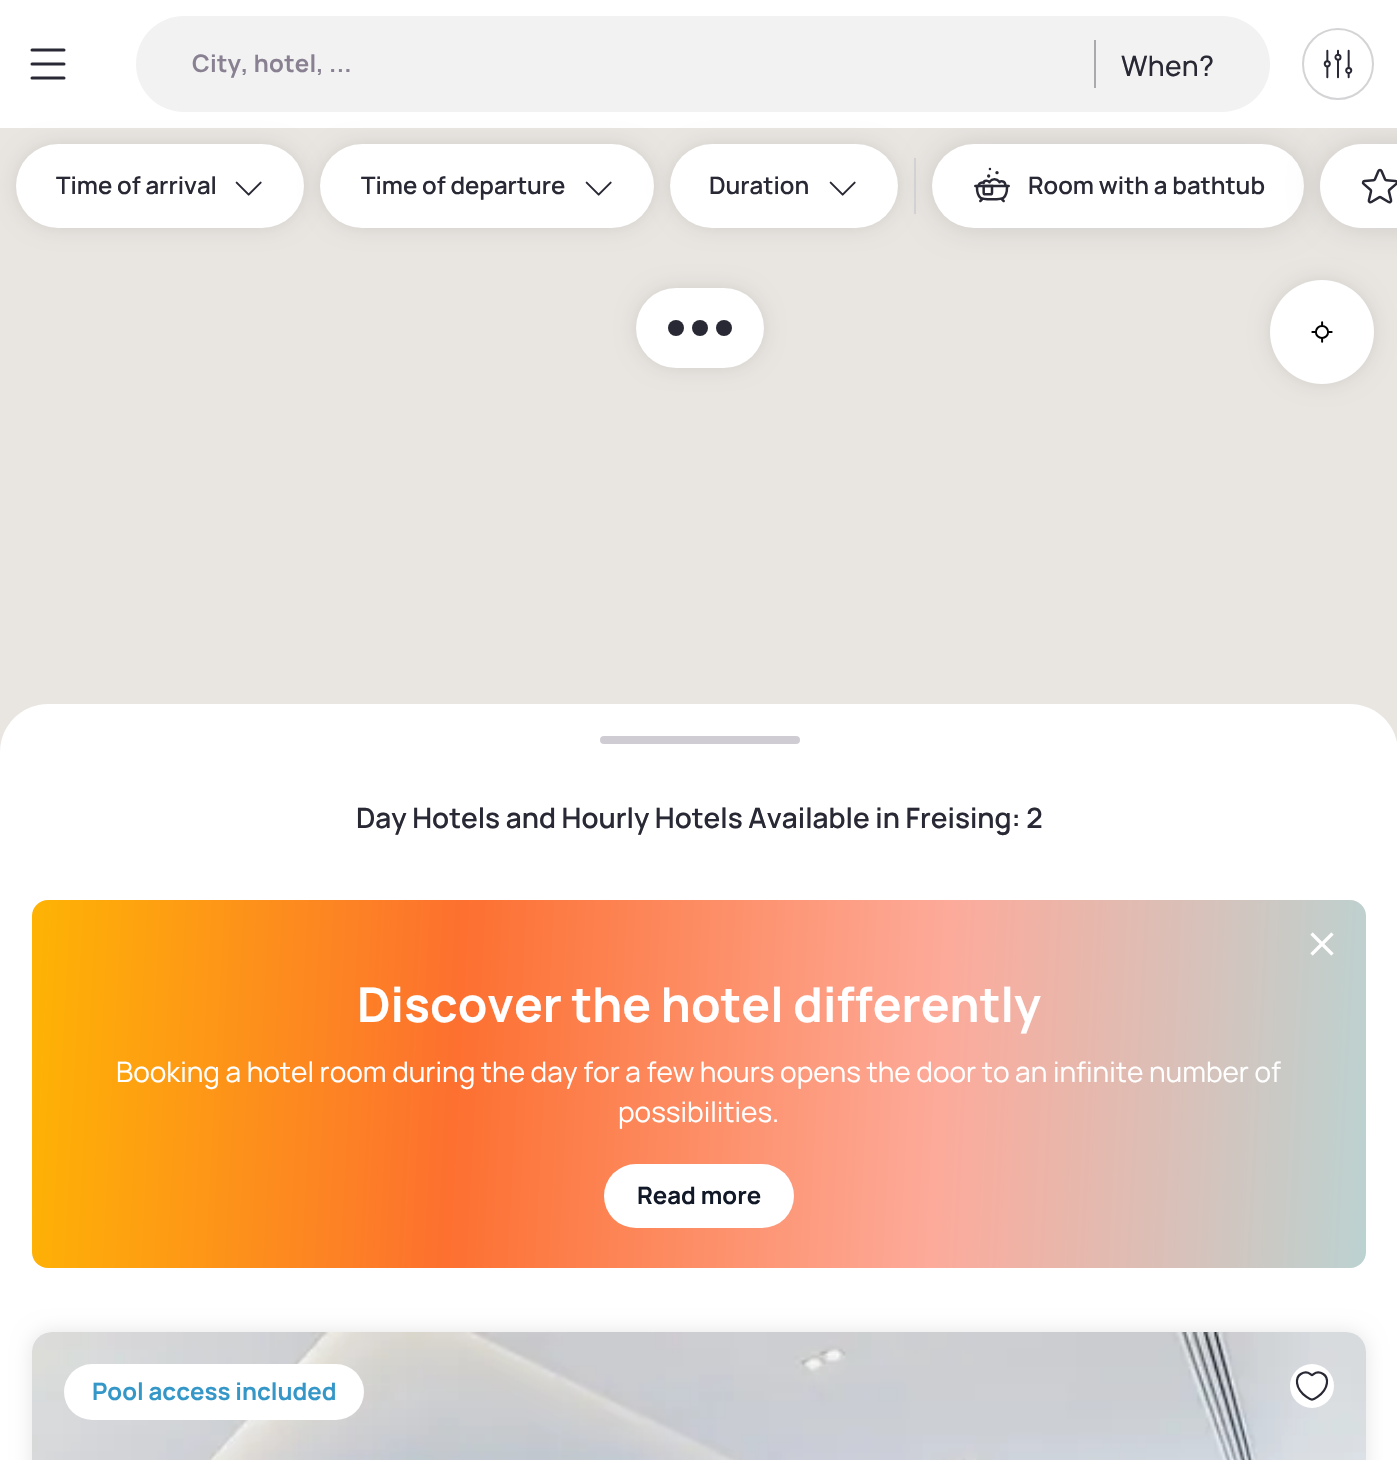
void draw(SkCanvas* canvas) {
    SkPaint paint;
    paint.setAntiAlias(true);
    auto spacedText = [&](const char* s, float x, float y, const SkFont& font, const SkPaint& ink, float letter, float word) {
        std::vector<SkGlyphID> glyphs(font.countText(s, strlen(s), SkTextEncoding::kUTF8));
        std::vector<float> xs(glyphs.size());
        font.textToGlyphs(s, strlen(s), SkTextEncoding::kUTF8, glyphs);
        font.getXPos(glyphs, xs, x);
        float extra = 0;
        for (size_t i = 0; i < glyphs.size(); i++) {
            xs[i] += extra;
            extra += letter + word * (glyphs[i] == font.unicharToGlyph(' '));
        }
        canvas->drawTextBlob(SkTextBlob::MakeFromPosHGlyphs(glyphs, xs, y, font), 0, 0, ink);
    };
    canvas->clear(0xFFFFFFFF);
    canvas->drawImageRect(SkImages::DeferredFromEncodedData(SkData::MakeFromFileName("img1.png")), SkRect::MakeXYWH(30, 48, 36, 32), SkSamplingOptions());
    paint.setColor(0xFFF2F2F3);
    canvas->drawRoundRect(SkRect::MakeXYWH(136, 16, 1134, 96), 48, 48, paint);
    SkFont font1(fontMgr->matchFamilyStyle("Manrope", SkFontStyle::Bold()), 24);
    font1.setSubpixel(true);
    paint.setColor(0xFF898191);
    spacedText("City, hotel, ...", 192, 72, font1, paint, 0.25f, 0);
    paint.setColor(0xFFA9A9AE);
    canvas->drawRect(SkRect::MakeXYWH(1094, 40, 2, 48), paint);
    SkFont font2(fontMgr->matchFamilyStyle("Manrope", SkFontStyle(500, SkFontStyle::kNormal_Width, SkFontStyle::kUpright_Slant)), 28);
    font2.setSubpixel(true);
    paint.setColor(0xFF292935);
    spacedText("When?", 1121, 76, font2, paint, 0.25f, 0);
    paint.setColor(0xFFE9E6E2);
    canvas->drawRect(SkRect::MakeXYWH(0, 128, 1397, 624), paint);
    paint.setColor(0x1A000000);
    paint.setMaskFilter(SkMaskFilter::MakeBlur(kNormal_SkBlurStyle, 10));
    canvas->drawRoundRect(SkRect::MakeXYWH(16, 144, 288, 84), 42, 42, paint);
    paint.setMaskFilter(nullptr);
    paint.setColor(0xFFFFFFFF);
    canvas->drawRoundRect(SkRect::MakeXYWH(16, 144, 288, 84), 42, 42, paint);
    paint.setColor(0x1A000000);
    paint.setMaskFilter(SkMaskFilter::MakeBlur(kNormal_SkBlurStyle, 10));
    canvas->drawRoundRect(SkRect::MakeXYWH(320, 144, 334, 84), 42, 42, paint);
    paint.setMaskFilter(nullptr);
    paint.setColor(0xFFFFFFFF);
    canvas->drawRoundRect(SkRect::MakeXYWH(320, 144, 334, 84), 42, 42, paint);
    paint.setColor(0x1A000000);
    paint.setMaskFilter(SkMaskFilter::MakeBlur(kNormal_SkBlurStyle, 10));
    canvas->drawRoundRect(SkRect::MakeXYWH(670, 144, 228, 84), 42, 42, paint);
    paint.setMaskFilter(nullptr);
    paint.setColor(0xFFFFFFFF);
    canvas->drawRoundRect(SkRect::MakeXYWH(670, 144, 228, 84), 42, 42, paint);
    paint.setColor(0xFFD4D4D7);
    canvas->drawRect(SkRect::MakeXYWH(914, 158, 2, 56), paint);
    canvas->save();
    canvas->clipRect(SkRect::MakeXYWH(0, 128, 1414, 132));
    paint.setColor(0x1F000000);
    paint.setMaskFilter(SkMaskFilter::MakeBlur(kNormal_SkBlurStyle, 15));
    canvas->drawRoundRect(SkRect::MakeXYWH(932, 144, 372, 84), 42, 42, paint);
    paint.setMaskFilter(nullptr);
    canvas->restore();
    paint.setColor(0xFFFFFFFF);
    canvas->drawRoundRect(SkRect::MakeXYWH(932, 144, 372, 84), 42, 42, paint);
    canvas->save();
    canvas->clipRect(SkRect::MakeXYWH(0, 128, 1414, 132));
    paint.setColor(0x1F000000);
    paint.setMaskFilter(SkMaskFilter::MakeBlur(kNormal_SkBlurStyle, 15));
    canvas->drawRoundRect(SkRect::MakeXYWH(1320, 144, 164, 84), 42, 42, paint);
    paint.setMaskFilter(nullptr);
    canvas->restore();
    paint.setStyle(SkPaint::kStroke_Style);
    paint.setStrokeWidth(2);
    paint.setColor(0xFFD4D4D7);
    canvas->drawCircle(1338, 64, 35, paint);
    canvas->drawImageRect(SkImages::DeferredFromEncodedData(SkData::MakeFromFileName("img2.png")), SkRect::MakeXYWH(1323, 49, 30, 30), SkSamplingOptions());
    SkFont font3(fontMgr->matchFamilyStyle("Manrope", SkFontStyle(600, SkFontStyle::kNormal_Width, SkFontStyle::kUpright_Slant)), 24);
    font3.setSubpixel(true);
    paint.setStyle(SkPaint::kFill_Style);
    paint.setColor(0xFF292935);
    canvas->drawString("Time of arrival", 56, 194, font3, paint);
    canvas->drawImageRect(SkImages::DeferredFromEncodedData(SkData::MakeFromFileName("img3.png")), SkRect::MakeXYWH(235, 181, 27, 15), SkSamplingOptions());
    canvas->drawString("Time of departure", 361, 194, font3, paint);
    canvas->drawImageRect(SkImages::DeferredFromEncodedData(SkData::MakeFromFileName("img3.png")), SkRect::MakeXYWH(585, 181, 27, 15), SkSamplingOptions());
    canvas->drawString("Duration", 709, 194, font3, paint);
    canvas->drawImageRect(SkImages::DeferredFromEncodedData(SkData::MakeFromFileName("img3.png")), SkRect::MakeXYWH(829, 181, 27, 15), SkSamplingOptions());
    canvas->drawImageRect(SkImages::DeferredFromEncodedData(SkData::MakeFromFileName("img4.png")), SkRect::MakeXYWH(974, 167, 36, 36), SkSamplingOptions());
    canvas->drawString("Room with a bathtub", 1028, 194, font3, paint);
    paint.setColor(0xFFFFFFFF);
    canvas->drawPath(SkPathBuilder().moveTo(1362, 144).lineTo(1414, 144).lineTo(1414, 228).lineTo(1362, 228).cubicTo(1339, 228, 1320, 209, 1320, 186).cubicTo(1320, 163, 1339, 144, 1362, 144).close().detach(), paint);
    canvas->drawImageRect(SkImages::DeferredFromEncodedData(SkData::MakeFromFileName("img5.png")), SkRect::MakeXYWH(1361, 168, 36, 36), SkSamplingOptions());
    canvas->drawPath(SkPathBuilder().moveTo(48, 704).lineTo(1350, 704).cubicTo(1376.5f, 704, 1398, 725.5f, 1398, 752).lineTo(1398, 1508).lineTo(0, 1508).lineTo(0, 752).cubicTo(0, 725.5f, 21.5f, 704, 48, 704).close().detach(), paint);
    paint.setColor(0xFFD0CCD3);
    canvas->drawRoundRect(SkRect::MakeXYWH(600, 736, 200, 8), 4, 4, paint);
    SkFont font4(fontMgr->matchFamilyStyle("Manrope", SkFontStyle(600, SkFontStyle::kNormal_Width, SkFontStyle::kUpright_Slant)), 28);
    font4.setSubpixel(true);
    paint.setColor(0xFF292935);
    canvas->drawString("Day Hotels and Hourly Hotels Available in Freising: 2", 356, 828, font4, paint);
    {
        const SkColor colors[] = {0xFFFEB900, 0xFFFD7030, 0xFFFDAA9A, 0xFFB7D5D5};
        const float stops[] = {0, 0.33f, 0.67f, 1};
        const SkPoint ends[] = {{-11, 1046}, {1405, 1121}};
        paint.setShader(SkGradientShader::MakeLinear(ends, colors, stops, 4, SkTileMode::kClamp));
        paint.setAlpha(255);
    }
    canvas->drawRoundRect(SkRect::MakeXYWH(32, 900, 1334, 368), 16, 16, paint);
    canvas->drawImageRect(SkImages::DeferredFromEncodedData(SkData::MakeFromFileName("img6.png")), SkRect::MakeXYWH(1310, 932, 24, 24), SkSamplingOptions());
    SkFont font5(fontMgr->matchFamilyStyle("Manrope", SkFontStyle::Bold()), 48);
    font5.setSubpixel(true);
    paint.setShader(nullptr);
    paint.setColor(0xFFFFFFFF);
    canvas->drawString("Discover the hotel differently", 357, 1022, font5, paint);
    SkFont font6(fontMgr->matchFamilyStyle("Manrope", SkFontStyle::Normal()), 28);
    font6.setSubpixel(true);
    canvas->drawString("Booking a hotel room during the day for a few hours opens the door to an infinite number of", 116, 1082, font6, paint);
    canvas->drawString("possibilities.", 618, 1122, font6, paint);
    canvas->drawRoundRect(SkRect::MakeXYWH(604, 1164, 190, 64), 32, 32, paint);
    paint.setColor(0xFF111827);
    canvas->drawString("Read more", 637, 1204, font1, paint);
    paint.setColor(0x1A000000);
    paint.setMaskFilter(SkMaskFilter::MakeBlur(kNormal_SkBlurStyle, 10));
    canvas->drawRoundRect(SkRect::MakeXYWH(32, 1332, 1334, 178), 20, 20, paint);
    paint.setMaskFilter(nullptr);
    paint.setColor(0xFFFFFFFF);
    canvas->drawRoundRect(SkRect::MakeXYWH(32, 1332, 1334, 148), 20, 20, paint);
    canvas->drawImageRect(SkImages::DeferredFromEncodedData(SkData::MakeFromFileName("img7.png")), SkRect::MakeXYWH(32, 1332, 1334, 128), SkSamplingOptions());
    canvas->drawCircle(1312, 1386, 22, paint);
    canvas->drawImageRect(SkImages::DeferredFromEncodedData(SkData::MakeFromFileName("img8.png")), SkRect::MakeXYWH(1295, 1371, 34, 30), SkSamplingOptions());
    canvas->drawRoundRect(SkRect::MakeXYWH(64, 1364, 300, 56), 28, 28, paint);
    paint.setColor(0xFF3597C8);
    canvas->drawString("Pool access included", 92, 1400, font1, paint);
    paint.setColor(0x1A000000);
    paint.setMaskFilter(SkMaskFilter::MakeBlur(kNormal_SkBlurStyle, 10));
    canvas->drawRoundRect(SkRect::MakeXYWH(636, 288, 128, 80), 40, 40, paint);
    paint.setMaskFilter(nullptr);
    paint.setColor(0xFFFFFFFF);
    canvas->drawRoundRect(SkRect::MakeXYWH(636, 288, 128, 80), 40, 40, paint);
    paint.setColor(0xFF292935);
    canvas->drawCircle(676, 328, 8, paint);
    canvas->drawCircle(700, 328, 8, paint);
    canvas->drawCircle(724, 328, 8, paint);
    paint.setColor(0x1A000000);
    paint.setMaskFilter(SkMaskFilter::MakeBlur(kNormal_SkBlurStyle, 10));
    canvas->drawRoundRect(SkRect::MakeXYWH(1270, 280, 104, 104), 52, 52, paint);
    paint.setMaskFilter(nullptr);
    paint.setColor(0xFFFFFFFF);
    canvas->drawCircle(1322, 332, 52, paint);
    canvas->drawImageRect(SkImages::DeferredFromEncodedData(SkData::MakeFromFileName("img9.png")), SkRect::MakeXYWH(1311, 321, 22, 22), SkSamplingOptions());
}
